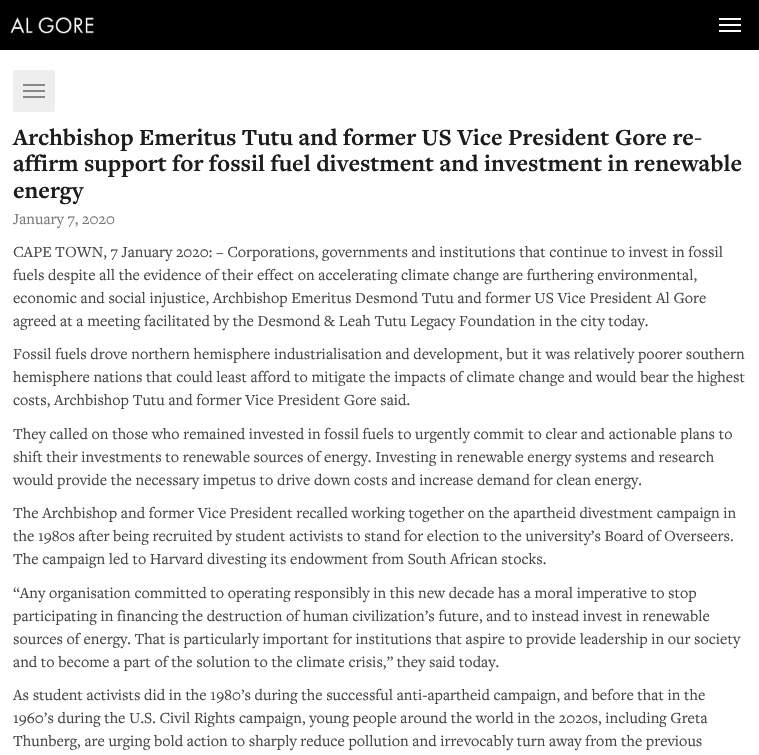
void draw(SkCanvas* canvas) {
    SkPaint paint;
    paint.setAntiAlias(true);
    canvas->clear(0xFFFFFFFF);
    paint.setColor(0xFF000000);
    canvas->drawRect(SkRect::MakeXYWH(0, 0, 759, 50), paint);
    canvas->drawImageRect(SkImages::DeferredFromEncodedData(SkData::MakeFromFileName("img1.png")), SkRect::MakeXYWH(10, 17, 84, 17), SkSamplingOptions());
    paint.setColor(0xFFFFFFFF);
    canvas->drawRect(SkRect::MakeXYWH(719, 18, 22, 2), paint);
    canvas->drawRect(SkRect::MakeXYWH(719, 24, 22, 2), paint);
    canvas->drawRect(SkRect::MakeXYWH(719, 30, 22, 2), paint);
    paint.setColor(0xFFEEEEEE);
    canvas->drawRoundRect(SkRect::MakeXYWH(13, 70, 42, 42), 2, 2, paint);
    paint.setColor(0xFF888888);
    canvas->drawRect(SkRect::MakeXYWH(23, 84, 22, 2), paint);
    canvas->drawRect(SkRect::MakeXYWH(23, 90, 22, 2), paint);
    canvas->drawRect(SkRect::MakeXYWH(23, 96, 22, 2), paint);
    SkFont font1(fontMgr->matchFamilyStyle("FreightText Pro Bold", SkFontStyle::Bold()), 24);
    font1.setSubpixel(true);
    paint.setColor(0xFF1E1D1C);
    canvas->drawString("Archbishop Emeritus Tutu and former US Vice President Gore re-", 13, 145, font1, paint);
    canvas->drawString("affirm support for fossil fuel divestment and investment in renewable", 13, 171, font1, paint);
    canvas->drawString("energy", 13, 198, font1, paint);
    SkFont font2(fontMgr->matchFamilyStyle("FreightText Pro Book", SkFontStyle::Normal()), 16);
    font2.setSubpixel(true);
    paint.setColor(0xFF777777);
    canvas->drawString("January 7, 2020", 13, 224, font2, paint);
    paint.setColor(0xFF484643);
    canvas->drawString("CAPE TOWN, 7 January 2020: – Corporations, governments and institutions that continue to invest in fossil", 13, 257, font2, paint);
    canvas->drawString("fuels despite all the evidence of their effect on accelerating climate change are furthering environmental,", 13, 280, font2, paint);
    canvas->drawString("economic and social injustice, Archbishop Emeritus Desmond Tutu and former US Vice President Al Gore", 13, 303, font2, paint);
    canvas->drawString("agreed at a meeting facilitated by the Desmond & Leah Tutu Legacy Foundation in the city today.", 13, 326, font2, paint);
    canvas->drawString("Fossil fuels drove northern hemisphere industrialisation and development, but it was relatively poorer southern", 13, 359, font2, paint);
    canvas->drawString("hemisphere nations that could least afford to mitigate the impacts of climate change and would bear the highest", 13, 382, font2, paint);
    canvas->drawString("costs, Archbishop Tutu and former Vice President Gore said.", 13, 405, font2, paint);
    canvas->drawString("They called on those who remained invested in fossil fuels to urgently commit to clear and actionable plans to", 13, 439, font2, paint);
    canvas->drawString("shift their investments to renewable sources of energy. Investing in renewable energy systems and research", 13, 462, font2, paint);
    canvas->drawString("would provide the necessary impetus to drive down costs and increase demand for clean energy.", 13, 485, font2, paint);
    canvas->drawString("The Archbishop and former Vice President recalled working together on the apartheid divestment campaign in", 13, 518, font2, paint);
    canvas->drawString("the 1980s after being recruited by student activists to stand for election to the university’s Board of Overseers.", 13, 541, font2, paint);
    canvas->drawString("The campaign led to Harvard divesting its endowment from South African stocks.", 13, 564, font2, paint);
    canvas->drawString("“Any organisation committed to operating responsibly in this new decade has a moral imperative to stop", 13, 598, font2, paint);
    canvas->drawString("participating in financing the destruction of human civilization’s future, and to instead invest in renewable", 13, 621, font2, paint);
    canvas->drawString("sources of energy. That is particularly important for institutions that aspire to provide leadership in our society", 13, 644, font2, paint);
    canvas->drawString("and to become a part of the solution to the climate crisis,” they said today.", 13, 667, font2, paint);
    canvas->drawString("As student activists did in the 1980’s during the successful anti-apartheid campaign, and before that in the", 13, 700, font2, paint);
    canvas->drawString("1960’s during the U.S. Civil Rights campaign, young people around the world in the 2020s, including Greta", 13, 723, font2, paint);
    canvas->drawString("Thunberg, are urging bold action to sharply reduce pollution and irrevocably turn away from the previous", 13, 746, font2, paint);
}
